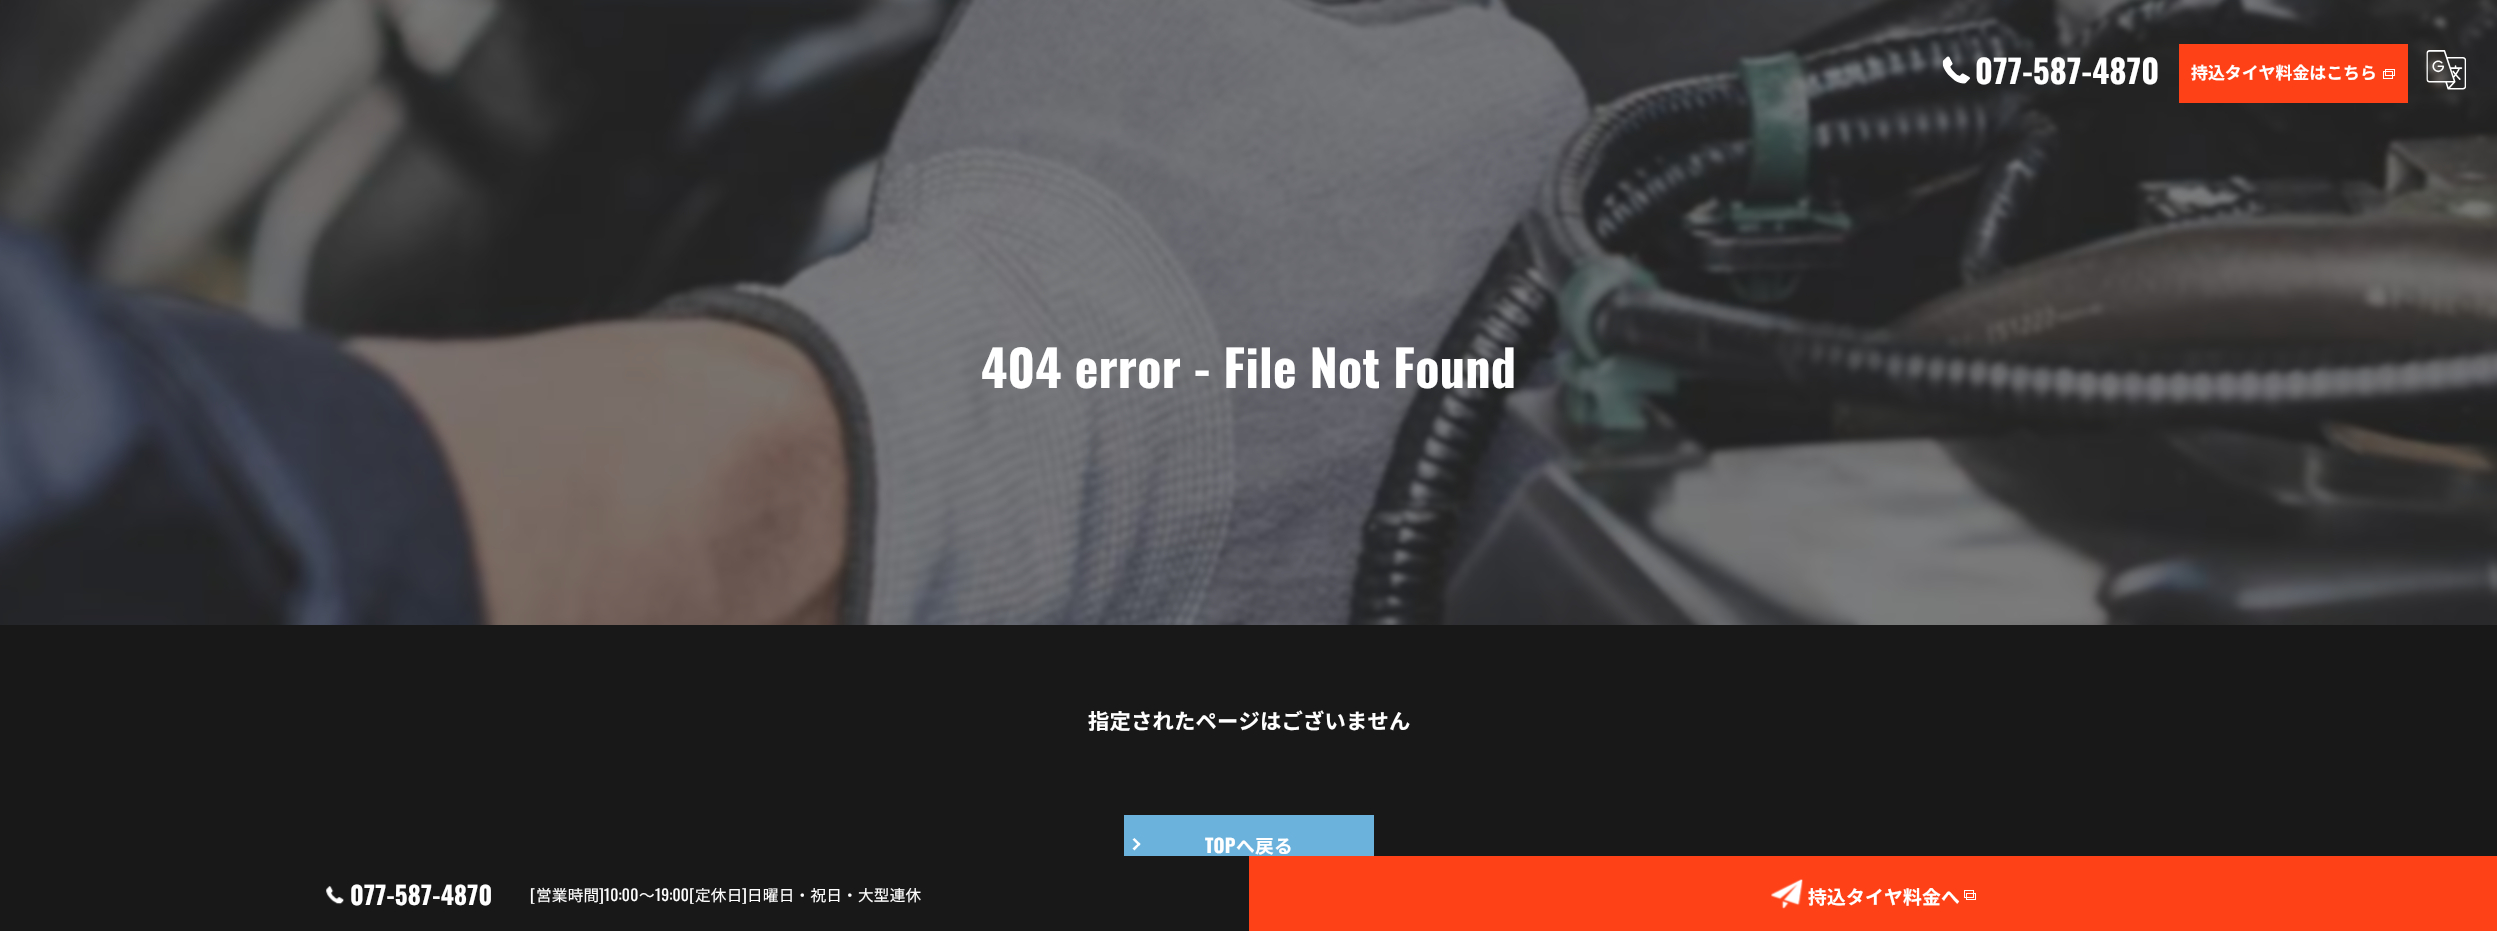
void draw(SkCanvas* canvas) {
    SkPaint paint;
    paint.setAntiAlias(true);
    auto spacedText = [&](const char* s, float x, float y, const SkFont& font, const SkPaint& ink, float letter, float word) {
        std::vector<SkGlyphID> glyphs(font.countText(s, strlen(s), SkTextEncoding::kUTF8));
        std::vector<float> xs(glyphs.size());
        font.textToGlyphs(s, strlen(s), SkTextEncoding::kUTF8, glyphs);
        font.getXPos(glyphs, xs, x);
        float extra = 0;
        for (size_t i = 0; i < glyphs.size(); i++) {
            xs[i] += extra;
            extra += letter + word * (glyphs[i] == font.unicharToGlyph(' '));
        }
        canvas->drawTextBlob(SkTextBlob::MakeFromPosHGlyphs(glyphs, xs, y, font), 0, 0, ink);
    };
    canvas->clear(0xFF181818);
    paint.setColor(0xFF333333);
    canvas->drawRect(SkRect::MakeXYWH(0, 0, 2497, 625), paint);
    canvas->drawImageRect(SkImages::DeferredFromEncodedData(SkData::MakeFromFileName("img3.png")), SkRect::MakeXYWH(0, 0, 2497, 625), SkSamplingOptions());
    canvas->drawImageRect(SkImages::DeferredFromEncodedData(SkData::MakeFromFileName("img1.png")), SkRect::MakeXYWH(1942, 56, 28, 28), SkSamplingOptions());
    SkFont font1(fontMgr->matchFamilyStyle("Oswald", SkFontStyle::Bold()), 32.5f);
    font1.setSubpixel(true);
    paint.setColor(0xFFFFFFFF);
    spacedText("077-587-4870", 1975, 84, font1, paint, 0.25f, 0);
    paint.setColor(0xFFFF4117);
    canvas->drawRect(SkRect::MakeXYWH(2179, 44, 229, 59), paint);
    SkFont font2(fontMgr->matchFamilyStyle("Noto Sans JP", SkFontStyle::Bold()), 16.9f);
    font2.setSubpixel(true);
    paint.setColor(0xFFFFFFFF);
    canvas->drawString("持込タイヤ料金はこちら", 2191, 79, font2, paint);
    paint.setStyle(SkPaint::kStroke_Style);
    paint.setStrokeWidth(1);
    canvas->drawRect(SkRect::MakeXYWH(2383.5f, 71.5f, 9, 7), paint);
    canvas->drawRect(SkRect::MakeXYWH(2385.5f, 69.5f, 9, 6), paint);
    canvas->drawImageRect(SkImages::DeferredFromEncodedData(SkData::MakeFromFileName("img2.png")), SkRect::MakeXYWH(2426, 50, 40, 40), SkSamplingOptions());
    SkFont font3(fontMgr->matchFamilyStyle("Oswald", SkFontStyle::Bold()), 50);
    font3.setSubpixel(true);
    paint.setStyle(SkPaint::kFill_Style);
    spacedText("404 error - File Not Found", 981, 388, font3, paint, 0.25f, 0);
    SkFont font4(fontMgr->matchFamilyStyle("Noto Sans JP", SkFontStyle::Bold()), 21.25f);
    font4.setSubpixel(true);
    spacedText("指定されたページはございません", 1088, 729, font4, paint, 0.25f, 0);
    paint.setColor(0xFF6BB3DD);
    canvas->drawRect(SkRect::MakeXYWH(1124, 815, 250, 41), paint);
    paint.setColor(0xFFFFFFFF);
    canvas->drawPath(SkPathBuilder().moveTo(1134.5f, 838).lineTo(1140.5f, 844).lineTo(1139, 846).lineTo(1132.5f, 839.5f).close().detach(), paint);
    canvas->drawPath(SkPathBuilder().moveTo(1139, 842.5f).lineTo(1140.5f, 844).lineTo(1134.5f, 850.5f).lineTo(1132.5f, 848.5f).close().detach(), paint);
    SkFont font5(fontMgr->matchFamilyStyle("Oswald", SkFontStyle::Bold()), 18.75f);
    font5.setSubpixel(true);
    spacedText("TOP", 1205, 853, font5, paint, 0.25f, 0);
    SkFont font6(fontMgr->matchFamilyStyle("Noto Sans JP", SkFontStyle::Bold()), 18.75f);
    font6.setSubpixel(true);
    spacedText("へ戻る", 1236, 853, font6, paint, 0.25f, 0);
    canvas->drawImageRect(SkImages::DeferredFromEncodedData(SkData::MakeFromFileName("img4.png")), SkRect::MakeXYWH(326, 886, 18, 19), SkSamplingOptions());
    SkFont font7(fontMgr->matchFamilyStyle("Oswald", SkFontStyle::Bold()), 25);
    font7.setSubpixel(true);
    spacedText("077-587-4870", 350, 905, font7, paint, 0.25f, 0);
    SkFont font8(fontMgr->matchFamilyStyle("Oswald", SkFontStyle::Normal()), 15.6f);
    font8.setSubpixel(true);
    spacedText("[", 530, 901, font8, paint, 0.25f, 0);
    SkFont font9(fontMgr->matchFamilyStyle("Noto Sans JP", SkFontStyle::Normal()), 15.6f);
    font9.setSubpixel(true);
    spacedText("営業時間", 536, 901, font9, paint, 0.25f, 0);
    spacedText("]10:00", 599, 901, font8, paint, 0.25f, 0);
    spacedText("～", 639, 901, font9, paint, 0.25f, 0);
    spacedText("19:00[", 655, 901, font8, paint, 0.25f, 0);
    spacedText("定休日", 695, 901, font9, paint, 0.25f, 0);
    spacedText("]", 742, 901, font8, paint, 0.25f, 0);
    spacedText("日曜日・祝日・大型連休", 747, 901, font9, paint, 0.25f, 0);
    paint.setColor(0xFFFF4117);
    canvas->drawRect(SkRect::MakeXYWH(1249, 856, 1248, 75), paint);
    canvas->drawImageRect(SkImages::DeferredFromEncodedData(SkData::MakeFromFileName("img5.png")), SkRect::MakeXYWH(1771, 879, 32, 30), SkSamplingOptions());
    paint.setColor(0xFFFFFFFF);
    spacedText("持込タイヤ料金へ", 1808, 904, font6, paint, 0.25f, 0);
    paint.setStyle(SkPaint::kStroke_Style);
    canvas->drawRect(SkRect::MakeXYWH(1966.5f, 893.5f, 9, 6), paint);
    canvas->drawRect(SkRect::MakeXYWH(1964.5f, 890.5f, 9, 7), paint);
}
